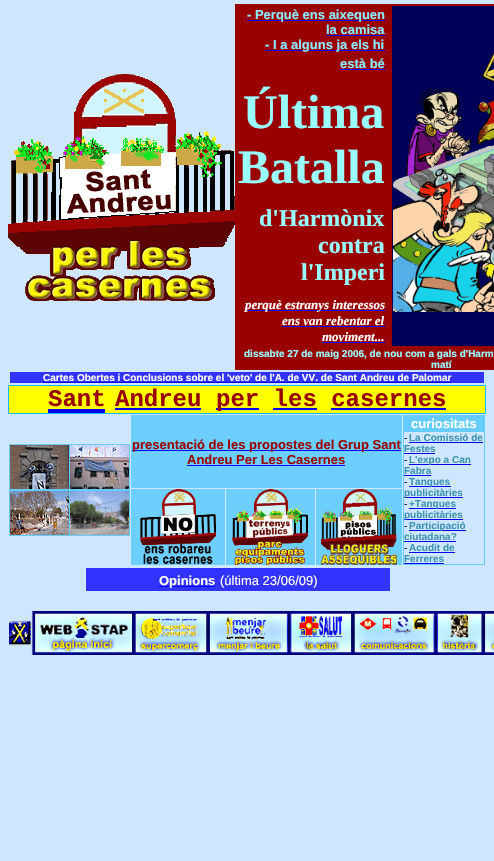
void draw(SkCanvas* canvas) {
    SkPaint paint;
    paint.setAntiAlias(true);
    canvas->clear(0xFFCEE7FF);
    canvas->drawImageRect(SkImages::DeferredFromEncodedData(SkData::MakeFromFileName("img1.png")), SkRect::MakeXYWH(8, 74, 227, 227), SkSamplingOptions());
    paint.setColor(0xFF990000);
    canvas->drawRect(SkRect::MakeXYWH(235, 4, 259, 366), paint);
    paint.setColor(0xFF0000EE);
    canvas->drawRect(SkRect::MakeXYWH(247, 20, 138, 1), paint);
    SkFont font1(fontMgr->matchFamilyStyle("Liberation Sans", SkFontStyle::Bold()), 13);
    font1.setSubpixel(true);
    paint.setColor(0xFF8CEBFF);
    canvas->drawString("- Perquè ens aixequen", 247, 19, font1, paint);
    canvas->drawString("la camisa", 326, 34, font1, paint);
    paint.setColor(0xFF0000EE);
    canvas->drawRect(SkRect::MakeXYWH(326, 35, 59, 1), paint);
    canvas->drawRect(SkRect::MakeXYWH(265, 50, 120, 1), paint);
    paint.setColor(0xFF8CEBFF);
    canvas->drawString("- I a alguns ja els hi", 265, 49, font1, paint);
    canvas->drawString("està bé", 340, 68, font1, paint);
    paint.setColor(0xFF0000EE);
    canvas->drawRect(SkRect::MakeXYWH(340, 69, 45, 1), paint);
    SkFont font2(fontMgr->matchFamilyStyle("Liberation Serif", SkFontStyle::Bold()), 48);
    font2.setSubpixel(true);
    paint.setColor(0xFF99FFFF);
    canvas->drawString("Última", 243, 128, font2, paint);
    canvas->drawString("Batalla", 238, 183, font2, paint);
    SkFont font3(fontMgr->matchFamilyStyle("Liberation Serif", SkFontStyle::Bold()), 24);
    font3.setSubpixel(true);
    canvas->drawString("d'Harmònix", 259, 226, font3, paint);
    canvas->drawString("contra", 318, 253, font3, paint);
    canvas->drawString("l'Imperi", 301, 280, font3, paint);
    paint.setColor(0xFF0000EE);
    canvas->drawRect(SkRect::MakeXYWH(245, 310, 140, 1), paint);
    SkFont font4(fontMgr->matchFamilyStyle("Liberation Serif", SkFontStyle::BoldItalic()), 13);
    font4.setSubpixel(true);
    paint.setColor(0xFFFFFFFF);
    canvas->drawString("perquè estranys interessos", 245, 309, font4, paint);
    canvas->drawString("ens van rebentar el", 282, 325, font4, paint);
    paint.setColor(0xFF0000EE);
    canvas->drawRect(SkRect::MakeXYWH(282, 326, 103, 1), paint);
    paint.setColor(0xFFFFFFFF);
    canvas->drawString("moviment...", 322, 341, font4, paint);
    paint.setColor(0xFF0000EE);
    canvas->drawRect(SkRect::MakeXYWH(322, 342, 63, 1), paint);
    paint.setColor(0xFF000059);
    canvas->drawRect(SkRect::MakeXYWH(392, 6, 102, 340), paint);
    canvas->drawImageRect(SkImages::DeferredFromEncodedData(SkData::MakeFromFileName("img2.png")), SkRect::MakeXYWH(393, 52, 101, 260), SkSamplingOptions());
    SkFont font5(fontMgr->matchFamilyStyle("Liberation Sans", SkFontStyle::Bold()), 10);
    font5.setSubpixel(true);
    paint.setColor(0xFF99FFFF);
    canvas->drawString("dissabte 27 de maig 2006, de nou com a gals d'Harm", 244, 357, font5, paint);
    canvas->drawString("matí", 431, 368, font5, paint);
    paint.setColor(0xFF3333FF);
    canvas->drawRect(SkRect::MakeXYWH(10, 372, 474, 11), paint);
    paint.setColor(0xFFFFFFFF);
    canvas->drawString("Cartes Obertes i Conclusions sobre el 'veto' de l'A. de VV. de Sant Andreu de Palomar", 43, 381, font5, paint);
    paint.setColor(0xFF0000EE);
    canvas->drawRect(SkRect::MakeXYWH(43, 382, 408, 1), paint);
    paint.setColor(0xFF1AB5FF);
    canvas->drawRect(SkRect::MakeXYWH(8, 385, 478, 29), paint);
    paint.setColor(0xFFFFFF00);
    canvas->drawRect(SkRect::MakeXYWH(9, 386, 476, 27), paint);
    SkFont font6(fontMgr->matchFamilyStyle("Liberation Mono", SkFontStyle::Bold()), 24);
    font6.setSubpixel(true);
    paint.setColor(0xFF990000);
    canvas->drawString("Sant", 48, 406, font6, paint);
    paint.setColor(0xFF0000EE);
    canvas->drawRect(SkRect::MakeXYWH(48, 409, 57, 4), paint);
    paint.setColor(0xFF990000);
    canvas->drawString("Andreu", 115, 406, font6, paint);
    paint.setColor(0xFF0000EE);
    canvas->drawRect(SkRect::MakeXYWH(115, 408, 86, 2), paint);
    canvas->drawRect(SkRect::MakeXYWH(216, 408, 43, 2), paint);
    paint.setColor(0xFF990000);
    canvas->drawString("per les casernes", 216, 406, font6, paint);
    paint.setColor(0xFF0000EE);
    canvas->drawRect(SkRect::MakeXYWH(273, 408, 44, 2), paint);
    canvas->drawRect(SkRect::MakeXYWH(331, 408, 115, 2), paint);
    paint.setColor(0xFF66CCFF);
    canvas->drawRect(SkRect::MakeXYWH(9, 444, 121, 92), paint);
    canvas->drawImageRect(SkImages::DeferredFromEncodedData(SkData::MakeFromFileName("img3.png")), SkRect::MakeXYWH(10, 445, 59, 44), SkSamplingOptions());
    canvas->drawImageRect(SkImages::DeferredFromEncodedData(SkData::MakeFromFileName("img4.png")), SkRect::MakeXYWH(70, 445, 59, 44), SkSamplingOptions());
    canvas->drawImageRect(SkImages::DeferredFromEncodedData(SkData::MakeFromFileName("img5.png")), SkRect::MakeXYWH(10, 491, 59, 44), SkSamplingOptions());
    canvas->drawImageRect(SkImages::DeferredFromEncodedData(SkData::MakeFromFileName("img6.png")), SkRect::MakeXYWH(70, 491, 59, 44), SkSamplingOptions());
    paint.setColor(0xFF6CCFFF);
    canvas->drawRect(SkRect::MakeXYWH(131, 415, 271, 73), paint);
    paint.setColor(0xFF0000EE);
    canvas->drawRect(SkRect::MakeXYWH(132, 450, 269, 1), paint);
    paint.setColor(0xFF990000);
    canvas->drawString("presentació de les propostes del Grup Sant", 132, 449, font1, paint);
    canvas->drawString("Andreu Per Les Casernes", 187, 464, font1, paint);
    paint.setColor(0xFF0000EE);
    canvas->drawRect(SkRect::MakeXYWH(187, 465, 158, 1), paint);
    paint.setColor(0xFF66CCFF);
    canvas->drawRect(SkRect::MakeXYWH(403, 415, 82, 150), paint);
    paint.setColor(0xFFFFFFFF);
    canvas->drawString("curiositats", 411, 428, font1, paint);
    paint.setColor(0xFFCEE7FF);
    canvas->drawRect(SkRect::MakeXYWH(404, 432, 80, 132), paint);
    SkFont font7(fontMgr->matchFamilyStyle("Liberation Serif", SkFontStyle::Normal()), 10);
    font7.setSubpixel(true);
    paint.setColor(0xFF000000);
    canvas->drawString("-", 404, 441, font7, paint);
    paint.setColor(0xFF3E93B3);
    canvas->drawString("La Comissió de", 409, 441, font5, paint);
    paint.setColor(0xFF0000EE);
    canvas->drawRect(SkRect::MakeXYWH(409, 442, 74, 1), paint);
    paint.setColor(0xFF3E93B3);
    canvas->drawString("Festes", 404, 452, font5, paint);
    paint.setColor(0xFF0000EE);
    canvas->drawRect(SkRect::MakeXYWH(404, 453, 31, 1), paint);
    paint.setColor(0xFF000000);
    canvas->drawString("-", 404, 463, font7, paint);
    paint.setColor(0xFF0000EE);
    canvas->drawRect(SkRect::MakeXYWH(409, 464, 62, 1), paint);
    paint.setColor(0xFF3E93B3);
    canvas->drawString("L'expo a Can", 409, 463, font5, paint);
    canvas->drawString("Fabra", 404, 474, font5, paint);
    paint.setColor(0xFF0000EE);
    canvas->drawRect(SkRect::MakeXYWH(404, 475, 27, 1), paint);
    paint.setColor(0xFF000000);
    canvas->drawString("-", 404, 485, font7, paint);
    paint.setColor(0xFF0000EE);
    canvas->drawRect(SkRect::MakeXYWH(409, 486, 42, 1), paint);
    paint.setColor(0xFF3E93B3);
    canvas->drawString("Tanques", 409, 485, font5, paint);
    paint.setColor(0xFF0000EE);
    canvas->drawRect(SkRect::MakeXYWH(404, 497, 59, 1), paint);
    paint.setColor(0xFF3E93B3);
    canvas->drawString("publicitàries", 404, 496, font5, paint);
    paint.setColor(0xFF000000);
    canvas->drawString("-", 404, 507, font7, paint);
    paint.setColor(0xFF0000EE);
    canvas->drawRect(SkRect::MakeXYWH(409, 508, 47, 1), paint);
    paint.setColor(0xFF3E93B3);
    canvas->drawString("+Tanques", 409, 507, font5, paint);
    paint.setColor(0xFF0000EE);
    canvas->drawRect(SkRect::MakeXYWH(404, 519, 59, 1), paint);
    paint.setColor(0xFF3E93B3);
    canvas->drawString("publicitàries", 404, 518, font5, paint);
    paint.setColor(0xFF000000);
    canvas->drawString("-", 404, 529, font7, paint);
    paint.setColor(0xFF0000EE);
    canvas->drawRect(SkRect::MakeXYWH(409, 530, 57, 1), paint);
    paint.setColor(0xFF3E93B3);
    canvas->drawString("Participació", 409, 529, font5, paint);
    canvas->drawString("ciutadana?", 404, 540, font5, paint);
    paint.setColor(0xFF0000EE);
    canvas->drawRect(SkRect::MakeXYWH(404, 541, 52, 1), paint);
    paint.setColor(0xFF000000);
    canvas->drawString("-", 404, 551, font7, paint);
    paint.setColor(0xFF3E93B3);
    canvas->drawString("Acudit de", 409, 551, font5, paint);
    paint.setColor(0xFF0000EE);
    canvas->drawRect(SkRect::MakeXYWH(409, 552, 46, 1), paint);
    paint.setColor(0xFF3E93B3);
    canvas->drawString("Ferreres", 404, 562, font5, paint);
    paint.setColor(0xFF0000EE);
    canvas->drawRect(SkRect::MakeXYWH(404, 563, 40, 1), paint);
    paint.setColor(0xFF6CCFFF);
    canvas->drawRect(SkRect::MakeXYWH(131, 489, 94, 76), paint);
    canvas->drawImageRect(SkImages::DeferredFromEncodedData(SkData::MakeFromFileName("img7.png")), SkRect::MakeXYWH(140, 489, 76, 76), SkSamplingOptions());
    canvas->drawRect(SkRect::MakeXYWH(226, 489, 89, 76), paint);
    canvas->drawImageRect(SkImages::DeferredFromEncodedData(SkData::MakeFromFileName("img8.png")), SkRect::MakeXYWH(232, 489, 76, 76), SkSamplingOptions());
    canvas->drawRect(SkRect::MakeXYWH(316, 489, 86, 76), paint);
    canvas->drawImageRect(SkImages::DeferredFromEncodedData(SkData::MakeFromFileName("img9.png")), SkRect::MakeXYWH(321, 489, 76, 76), SkSamplingOptions());
    paint.setColor(0xFF3333FF);
    canvas->drawRect(SkRect::MakeXYWH(86, 568, 304, 23), paint);
    paint.setColor(0xFF0000EE);
    canvas->drawRect(SkRect::MakeXYWH(159, 586, 56, 1), paint);
    paint.setColor(0xFFFFFFFF);
    canvas->drawString("Opinions", 159, 585, font1, paint);
    SkFont font8(fontMgr->matchFamilyStyle("Liberation Sans", SkFontStyle::Normal()), 13);
    font8.setSubpixel(true);
    canvas->drawString("(última 23/06/09)", 220, 585, font8, paint);
    canvas->drawImageRect(SkImages::DeferredFromEncodedData(SkData::MakeFromFileName("img10.png")), SkRect::MakeXYWH(9, 611, 485, 44), SkSamplingOptions());
}
